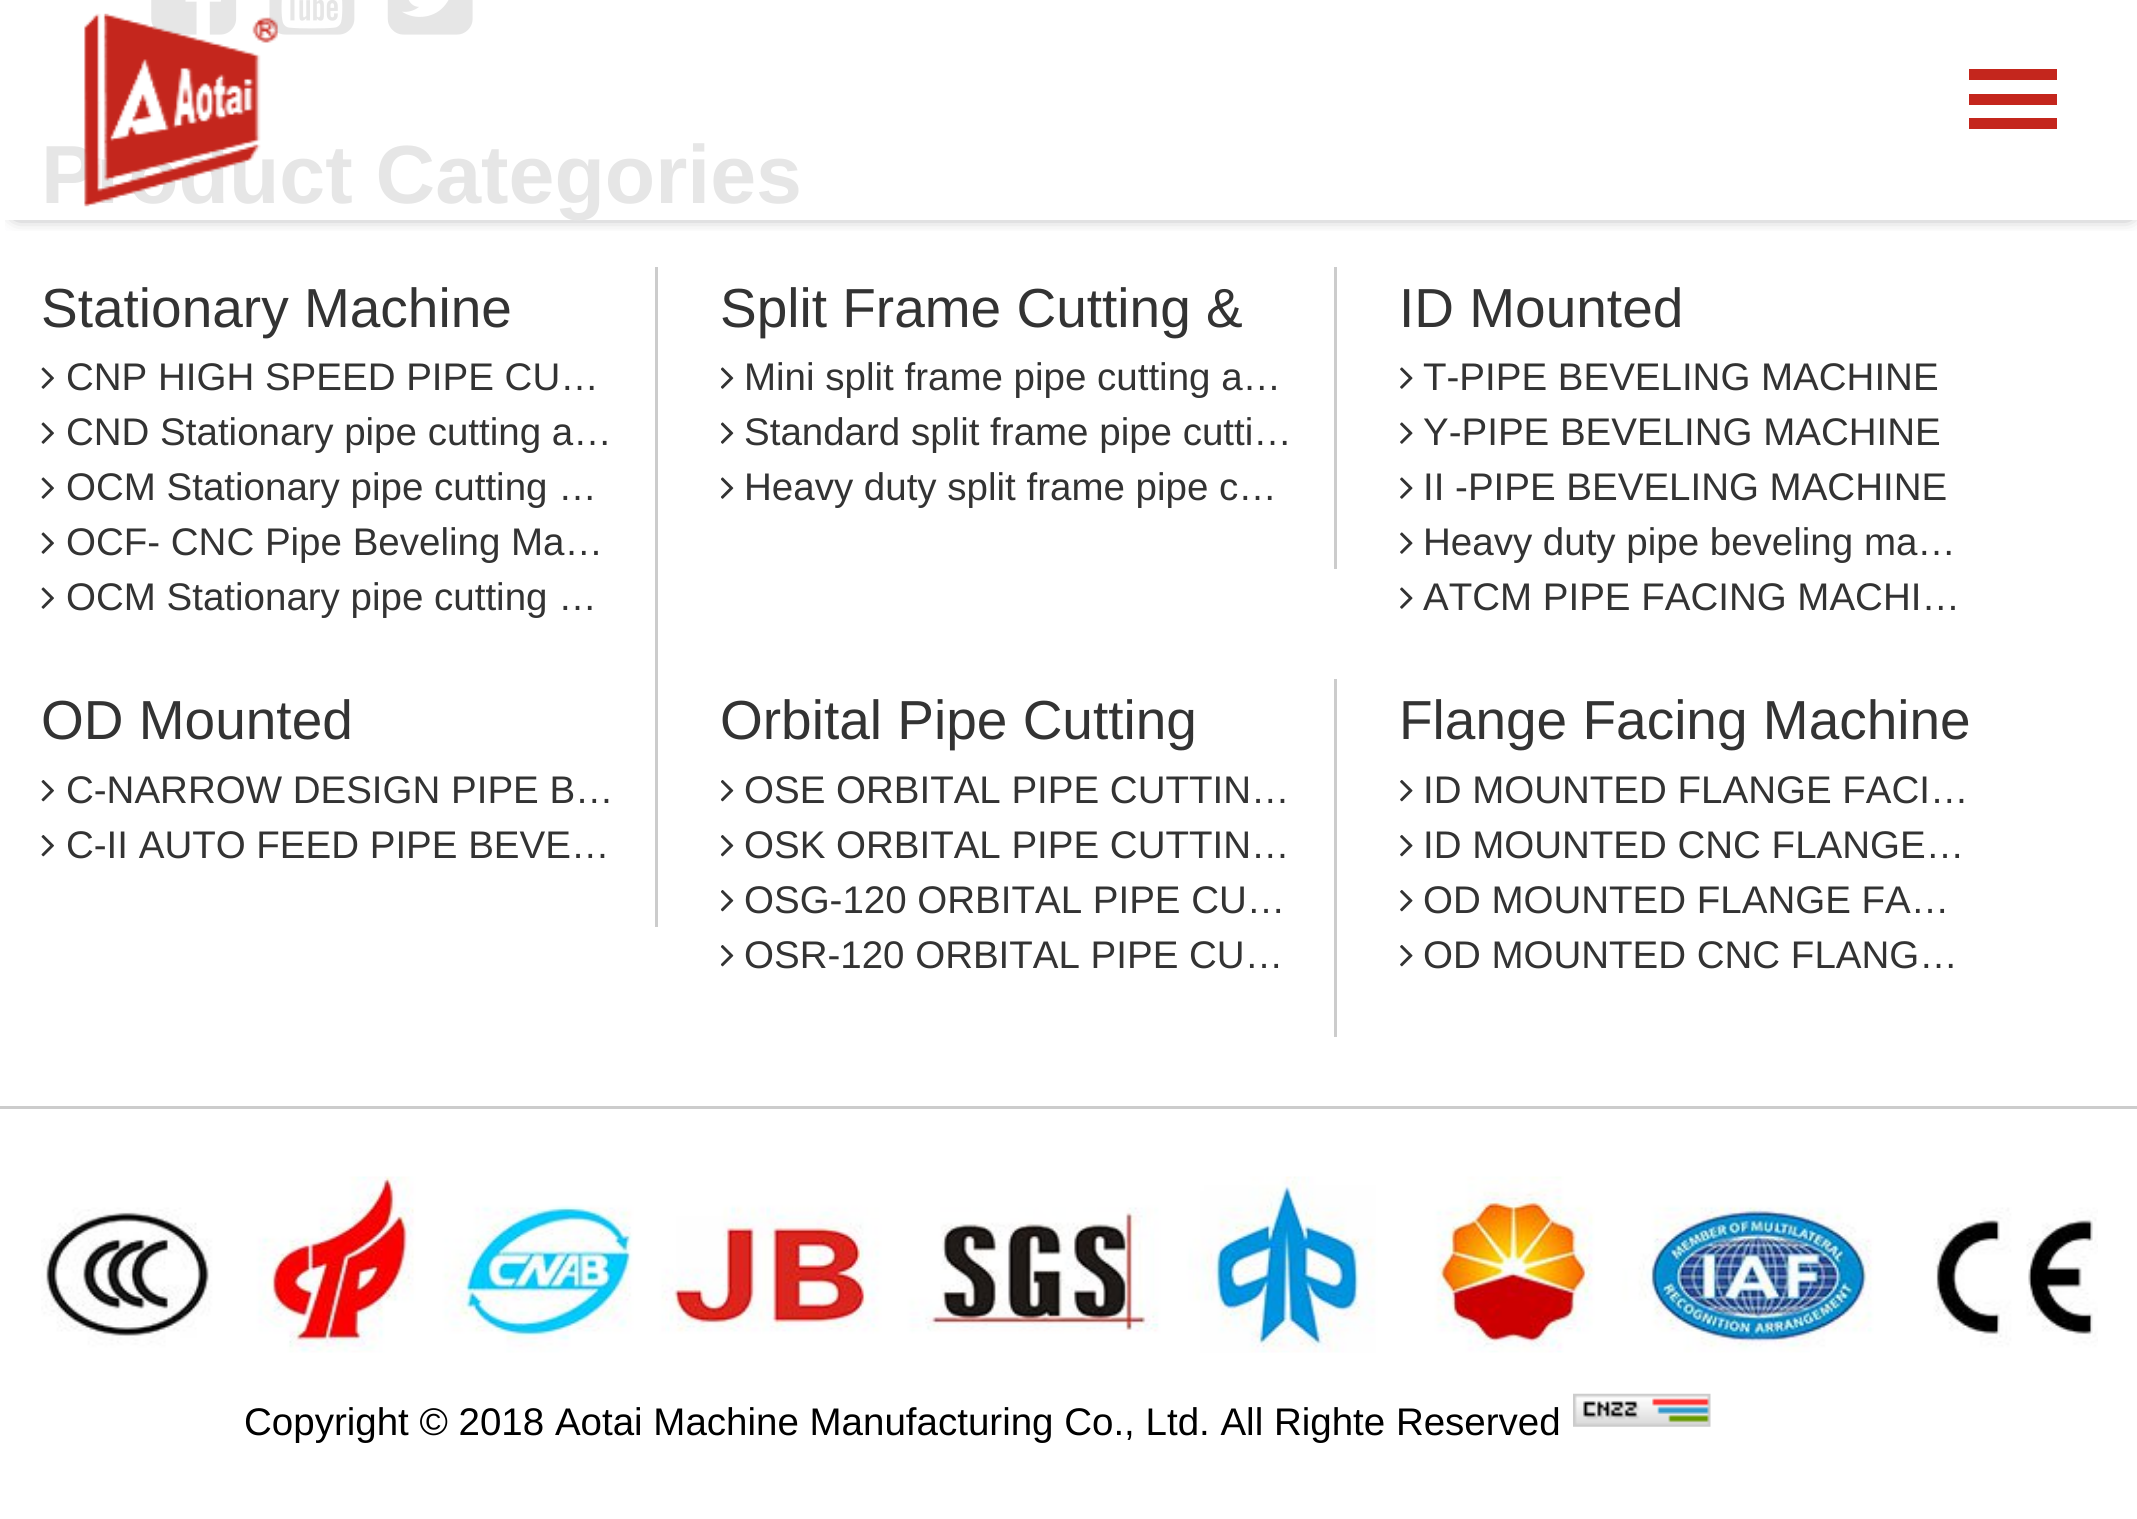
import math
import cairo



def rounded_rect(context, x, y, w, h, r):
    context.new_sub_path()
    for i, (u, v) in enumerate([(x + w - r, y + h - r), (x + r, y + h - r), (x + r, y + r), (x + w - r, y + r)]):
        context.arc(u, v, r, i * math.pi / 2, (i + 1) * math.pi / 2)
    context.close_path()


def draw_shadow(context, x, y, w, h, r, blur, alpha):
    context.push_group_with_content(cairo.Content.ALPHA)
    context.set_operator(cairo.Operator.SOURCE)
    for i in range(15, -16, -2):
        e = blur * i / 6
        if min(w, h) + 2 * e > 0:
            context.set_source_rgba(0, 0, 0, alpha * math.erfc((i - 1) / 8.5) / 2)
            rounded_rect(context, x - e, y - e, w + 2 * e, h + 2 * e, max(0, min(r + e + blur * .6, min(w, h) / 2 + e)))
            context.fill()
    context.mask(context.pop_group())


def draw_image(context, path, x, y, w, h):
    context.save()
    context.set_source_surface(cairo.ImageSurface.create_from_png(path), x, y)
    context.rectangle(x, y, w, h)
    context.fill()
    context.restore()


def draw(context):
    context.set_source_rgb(1, 1, 1)
    context.paint()
    draw_image(context, "images/2.png", 151, 0, 86, 35)
    draw_image(context, "images/3.png", 269, 0, 86, 35)
    draw_image(context, "images/4.png", 387, 0, 86, 35)
    context.save()
    context.rectangle(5, 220, 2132, 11)
    context.clip()
    context.set_source_rgb(63 / 255, 63 / 255, 70 / 255)
    draw_shadow(context, 17, 19, 2112, 193, 0, 9.5, 1)
    context.restore()
    context.set_source_rgb(196 / 255, 38 / 255, 29 / 255)
    context.rectangle(1969, 69, 88, 11)
    context.fill()
    context.rectangle(1969, 94, 88, 11)
    context.fill()
    context.rectangle(1969, 118, 88, 11)
    context.fill()
    context.set_source_rgb(204 / 255, 204 / 255, 204 / 255)
    context.rectangle(655, 267, 3, 660)
    context.fill()
    draw_image(context, "images/5.png", 41, 367, 13, 22)
    draw_image(context, "images/5.png", 41, 422, 13, 22)
    draw_image(context, "images/5.png", 41, 477, 13, 22)
    draw_image(context, "images/5.png", 41, 532, 13, 22)
    draw_image(context, "images/5.png", 41, 587, 13, 22)
    context.rectangle(1334, 267, 3, 302)
    context.fill()
    draw_image(context, "images/6.png", 721, 367, 13, 22)
    draw_image(context, "images/6.png", 721, 422, 13, 22)
    draw_image(context, "images/6.png", 721, 477, 13, 22)
    draw_image(context, "images/7.png", 1400, 367, 13, 22)
    draw_image(context, "images/7.png", 1400, 422, 13, 22)
    draw_image(context, "images/7.png", 1400, 477, 13, 22)
    draw_image(context, "images/7.png", 1400, 532, 13, 22)
    draw_image(context, "images/7.png", 1400, 587, 13, 22)
    draw_image(context, "images/8.png", 41, 780, 13, 22)
    draw_image(context, "images/8.png", 41, 835, 13, 22)
    context.rectangle(1334, 679, 3, 358)
    context.fill()
    draw_image(context, "images/9.png", 721, 780, 13, 22)
    draw_image(context, "images/9.png", 721, 835, 13, 22)
    draw_image(context, "images/9.png", 721, 890, 13, 22)
    draw_image(context, "images/9.png", 721, 945, 13, 22)
    draw_image(context, "images/10.png", 1400, 780, 13, 22)
    draw_image(context, "images/10.png", 1400, 835, 13, 22)
    draw_image(context, "images/10.png", 1400, 890, 13, 22)
    draw_image(context, "images/10.png", 1400, 945, 13, 22)
    context.rectangle(0, 1106, 2137, 3)
    context.fill()
    draw_image(context, "images/11.png", 41, 1176, 2057, 177)
    draw_image(context, "images/12.png", 1573, 1393, 138, 34)
    context.select_font_face("Liberation Sans", cairo.FontSlant.NORMAL, cairo.FontWeight.BOLD)
    context.set_font_size(82.5)
    context.set_source_rgb(230 / 255, 230 / 255, 230 / 255)
    context.move_to(41, 203)
    context.show_text("Product Categories")
    draw_image(context, "images/1.png", 84, 13, 194, 194)
    context.select_font_face("Liberation Sans")
    context.set_font_size(55)
    context.set_source_rgb(51 / 255, 51 / 255, 51 / 255)
    context.move_to(41, 327)
    context.show_text("Stationary Machine")
    context.set_font_size(38.5)
    context.move_to(66, 390)
    context.show_text("CNP HIGH SPEED PIPE CU…")
    context.move_to(66, 445)
    context.show_text("CND Stationary pipe cutting a…")
    context.move_to(66, 500)
    context.show_text("OCM Stationary pipe cutting …")
    context.move_to(66, 555)
    context.show_text("OCF- CNC Pipe Beveling Ma…")
    context.move_to(66, 610)
    context.show_text("OCM Stationary pipe cutting …")
    context.set_font_size(55)
    context.move_to(720, 327)
    context.show_text("Split Frame Cutting &")
    context.set_font_size(38.5)
    context.move_to(744, 390)
    context.show_text("Mini split frame pipe cutting a…")
    context.move_to(744, 445)
    context.show_text("Standard split frame pipe cutti…")
    context.move_to(744, 500)
    context.show_text("Heavy duty split frame pipe c…")
    context.set_font_size(55)
    context.move_to(1399, 327)
    context.show_text("ID Mounted")
    context.set_font_size(38.5)
    context.move_to(1423, 390)
    context.show_text("T-PIPE BEVELING MACHINE")
    context.move_to(1423, 445)
    context.show_text("Y-PIPE BEVELING MACHINE")
    context.move_to(1423, 500)
    context.show_text("II -PIPE BEVELING MACHINE")
    context.move_to(1423, 555)
    context.show_text("Heavy duty pipe beveling ma…")
    context.move_to(1423, 610)
    context.show_text("ATCM PIPE FACING MACHI…")
    context.set_font_size(55)
    context.move_to(41, 739)
    context.show_text("OD Mounted")
    context.set_font_size(38.5)
    context.move_to(66, 803)
    context.show_text("C-NARROW DESIGN PIPE B…")
    context.move_to(66, 858)
    context.show_text("C-II AUTO FEED PIPE BEVE…")
    context.set_font_size(55)
    context.move_to(720, 739)
    context.show_text("Orbital Pipe Cutting")
    context.set_font_size(38.5)
    context.move_to(744, 803)
    context.show_text("OSE ORBITAL PIPE CUTTIN…")
    context.move_to(744, 858)
    context.show_text("OSK ORBITAL PIPE CUTTIN…")
    context.move_to(744, 913)
    context.show_text("OSG-120 ORBITAL PIPE CU…")
    context.move_to(744, 968)
    context.show_text("OSR-120 ORBITAL PIPE CU…")
    context.set_font_size(55)
    context.move_to(1399, 739)
    context.show_text("Flange Facing Machine")
    context.set_font_size(38.5)
    context.move_to(1423, 803)
    context.show_text("ID MOUNTED FLANGE FACI…")
    context.move_to(1423, 858)
    context.show_text("ID MOUNTED CNC FLANGE…")
    context.move_to(1423, 913)
    context.show_text("OD MOUNTED FLANGE FA…")
    context.move_to(1423, 968)
    context.show_text("OD MOUNTED CNC FLANG…")
    context.set_source_rgb(0, 0, 0)
    context.move_to(244, 1435)
    context.show_text("Copyright © 2018 Aotai Machine Manufacturing Co., Ltd. All Righte Reserved")


surface = cairo.ImageSurface(cairo.Format.RGB24, 2137, 1519)
context = cairo.Context(surface)
options = cairo.FontOptions()
options.set_hint_metrics(cairo.HintMetrics.OFF)
options.set_hint_style(cairo.HintStyle.NONE)
context.set_font_options(options)
context.set_miter_limit(4)
draw(context)
surface.write_to_png("out.png")
